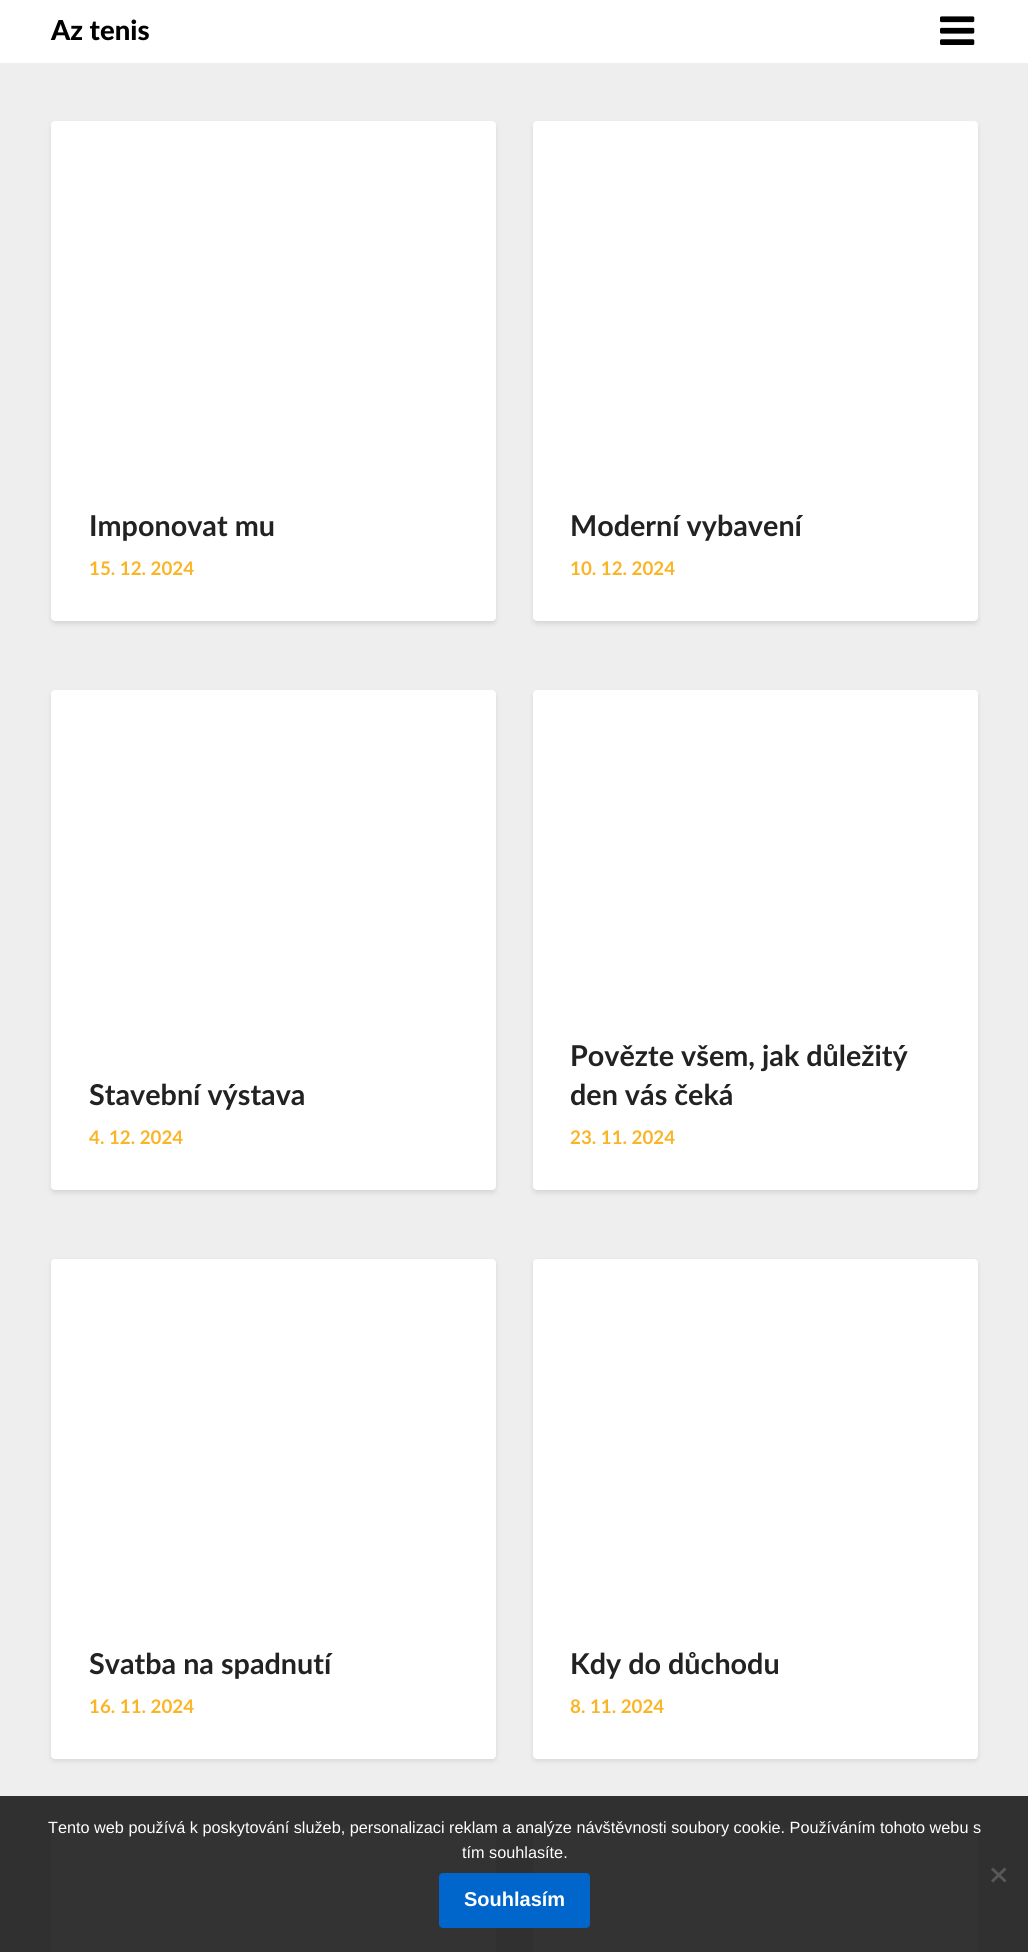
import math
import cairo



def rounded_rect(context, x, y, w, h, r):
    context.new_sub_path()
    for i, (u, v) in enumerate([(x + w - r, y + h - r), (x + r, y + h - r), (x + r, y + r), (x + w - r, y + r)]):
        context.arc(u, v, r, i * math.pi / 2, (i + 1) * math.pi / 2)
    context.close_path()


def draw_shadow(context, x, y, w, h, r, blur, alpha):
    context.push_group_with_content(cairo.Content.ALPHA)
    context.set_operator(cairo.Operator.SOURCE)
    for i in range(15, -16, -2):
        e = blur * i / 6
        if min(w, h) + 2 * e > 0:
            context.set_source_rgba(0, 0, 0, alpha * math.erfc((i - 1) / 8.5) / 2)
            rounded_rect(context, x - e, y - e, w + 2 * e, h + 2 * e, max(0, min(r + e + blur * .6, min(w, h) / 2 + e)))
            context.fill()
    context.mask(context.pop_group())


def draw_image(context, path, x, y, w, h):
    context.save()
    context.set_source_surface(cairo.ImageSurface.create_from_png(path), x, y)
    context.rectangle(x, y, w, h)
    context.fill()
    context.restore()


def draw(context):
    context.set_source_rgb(238 / 255, 238 / 255, 238 / 255)
    context.paint()
    context.set_source_rgb(48 / 255, 48 / 255, 48 / 255)
    context.rectangle(0, 1796, 1028, 156)
    context.fill()
    context.set_source_rgb(1, 1, 1)
    context.rectangle(0, 0, 1028, 63)
    context.fill()
    draw_image(context, "images/1.png", 940, 16, 35, 29)
    context.set_source_rgb(0, 0, 0)
    draw_shadow(context, 51, 124, 445, 500, 4, 2.5, 0.1)
    context.set_source_rgb(1, 1, 1)
    rounded_rect(context, 51, 121, 445, 500, 4)
    context.fill()
    context.set_source_rgb(0, 0, 0)
    draw_shadow(context, 533, 124, 445, 500, 4, 2.5, 0.1)
    context.set_source_rgb(1, 1, 1)
    rounded_rect(context, 533, 121, 445, 500, 4)
    context.fill()
    context.set_source_rgb(0, 0, 0)
    draw_shadow(context, 51, 693, 445, 500, 4, 2.5, 0.1)
    context.set_source_rgb(1, 1, 1)
    rounded_rect(context, 51, 690, 445, 500, 4)
    context.fill()
    context.set_source_rgb(0, 0, 0)
    draw_shadow(context, 533, 693, 445, 500, 4, 2.5, 0.1)
    context.set_source_rgb(1, 1, 1)
    rounded_rect(context, 533, 690, 445, 500, 4)
    context.fill()
    context.set_source_rgb(0, 0, 0)
    draw_shadow(context, 51, 1261, 445, 500, 4, 2.5, 0.1)
    context.set_source_rgb(1, 1, 1)
    rounded_rect(context, 51, 1259, 445, 500, 4)
    context.fill()
    context.set_source_rgb(0, 0, 0)
    draw_shadow(context, 533, 1261, 445, 500, 4, 2.5, 0.1)
    context.set_source_rgb(1, 1, 1)
    rounded_rect(context, 533, 1259, 445, 500, 4)
    context.fill()
    context.set_source_rgb(51 / 255, 51 / 255, 51 / 255)
    rounded_rect(context, 51, 1828, 445, 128, 4)
    context.fill()
    rounded_rect(context, 533, 1828, 445, 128, 4)
    context.fill()
    context.set_source_rgb(88 / 255, 88 / 255, 88 / 255)
    context.new_path()
    context.move_to(1004.5, 1867.5)
    context.line_to(1006.5, 1869.5)
    context.line_to(993, 1882.5)
    context.line_to(991, 1880.5)
    context.close_path()
    context.fill()
    context.new_path()
    context.move_to(991, 1869.5)
    context.line_to(993, 1867.5)
    context.line_to(1006.5, 1880.5)
    context.line_to(1004.5, 1882.5)
    context.close_path()
    context.fill()
    context.set_source_rgb(0, 102 / 255, 204 / 255)
    rounded_rect(context, 439, 1873, 151, 55, 4)
    context.fill()
    context.select_font_face("Lato Black")
    context.set_font_size(27.5)
    context.set_source_rgb(0, 0, 0)
    context.move_to(51, 40)
    context.show_text("Az tenis")
    context.select_font_face("Lato", cairo.FontSlant.NORMAL, cairo.FontWeight.BOLD)
    context.set_font_size(28.75)
    context.set_source_rgb(34 / 255, 34 / 255, 34 / 255)
    context.move_to(89, 536)
    context.show_text("Imponovat mu")
    context.set_font_size(18.75)
    context.set_source_rgb(250 / 255, 181 / 255, 38 / 255)
    context.move_to(89, 575)
    context.show_text("15. 12. 2024")
    context.set_font_size(28.75)
    context.set_source_rgb(34 / 255, 34 / 255, 34 / 255)
    context.move_to(570, 536)
    context.show_text("Moderní vybavení")
    context.set_font_size(18.75)
    context.set_source_rgb(250 / 255, 181 / 255, 38 / 255)
    context.move_to(570, 575)
    context.show_text("10. 12. 2024")
    context.set_font_size(28.75)
    context.set_source_rgb(34 / 255, 34 / 255, 34 / 255)
    context.move_to(89, 1105)
    context.show_text("Stavební výstava")
    context.set_font_size(18.75)
    context.set_source_rgb(250 / 255, 181 / 255, 38 / 255)
    context.move_to(89, 1144)
    context.show_text("4. 12. 2024")
    context.set_font_size(28.75)
    context.set_source_rgb(34 / 255, 34 / 255, 34 / 255)
    context.move_to(570, 1066)
    context.show_text("Povězte všem, jak důležitý")
    context.move_to(570, 1105)
    context.show_text("den vás čeká")
    context.set_font_size(18.75)
    context.set_source_rgb(250 / 255, 181 / 255, 38 / 255)
    context.move_to(570, 1144)
    context.show_text("23. 11. 2024")
    context.set_font_size(28.75)
    context.set_source_rgb(34 / 255, 34 / 255, 34 / 255)
    context.move_to(89, 1674)
    context.show_text("Svatba na spadnutí")
    context.set_font_size(18.75)
    context.set_source_rgb(250 / 255, 181 / 255, 38 / 255)
    context.move_to(89, 1713)
    context.show_text("16. 11. 2024")
    context.set_font_size(28.75)
    context.set_source_rgb(34 / 255, 34 / 255, 34 / 255)
    context.move_to(570, 1674)
    context.show_text("Kdy do důchodu")
    context.set_font_size(18.75)
    context.set_source_rgb(250 / 255, 181 / 255, 38 / 255)
    context.move_to(570, 1713)
    context.show_text("8. 11. 2024")
    context.select_font_face("Liberation Sans")
    context.set_font_size(16.25)
    context.set_source_rgb(1, 1, 1)
    context.move_to(48, 1833)
    context.show_text("Tento web používá k poskytování služeb, personalizaci reklam a analýze návštěvnosti soubory cookie. Používáním tohoto webu s")
    context.move_to(462, 1858)
    context.show_text("tím souhlasíte.")
    context.select_font_face("Liberation Sans", cairo.FontSlant.NORMAL, cairo.FontWeight.BOLD)
    context.set_font_size(20)
    context.move_to(464, 1906)
    context.show_text("Souhlasím")


surface = cairo.ImageSurface(cairo.Format.RGB24, 1028, 1952)
context = cairo.Context(surface)
options = cairo.FontOptions()
options.set_hint_metrics(cairo.HintMetrics.OFF)
options.set_hint_style(cairo.HintStyle.NONE)
context.set_font_options(options)
context.set_miter_limit(4)
draw(context)
surface.write_to_png("out.png")
